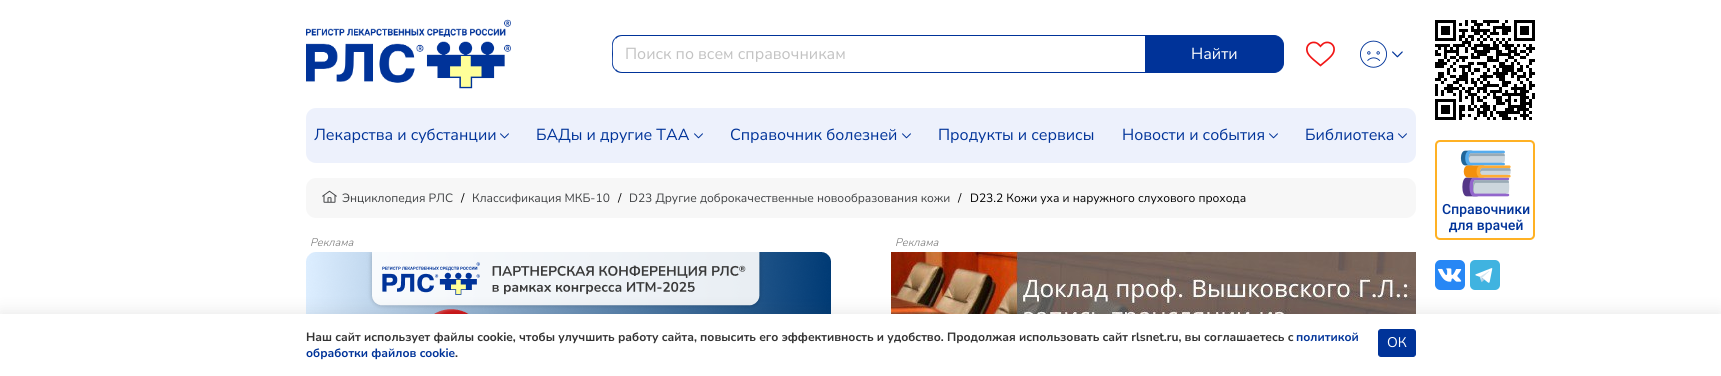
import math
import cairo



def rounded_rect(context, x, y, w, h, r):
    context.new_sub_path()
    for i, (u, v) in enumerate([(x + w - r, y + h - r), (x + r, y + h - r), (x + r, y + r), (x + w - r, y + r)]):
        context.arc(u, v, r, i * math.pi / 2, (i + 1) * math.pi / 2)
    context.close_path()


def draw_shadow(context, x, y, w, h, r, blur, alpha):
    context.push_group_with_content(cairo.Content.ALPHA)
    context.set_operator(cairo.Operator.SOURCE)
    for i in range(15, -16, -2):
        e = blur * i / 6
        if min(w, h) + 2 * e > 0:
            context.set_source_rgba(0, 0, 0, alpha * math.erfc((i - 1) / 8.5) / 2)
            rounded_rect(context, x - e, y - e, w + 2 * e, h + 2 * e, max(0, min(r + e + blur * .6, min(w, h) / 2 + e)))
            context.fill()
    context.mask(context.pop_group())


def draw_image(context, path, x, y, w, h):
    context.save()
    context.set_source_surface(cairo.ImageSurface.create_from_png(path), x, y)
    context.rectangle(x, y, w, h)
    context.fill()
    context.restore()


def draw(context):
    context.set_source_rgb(1, 1, 1)
    context.paint()
    draw_image(context, "images/1.png", 306, 19, 205, 70)
    context.set_source_rgb(0, 51 / 255, 153 / 255)
    context.new_path()
    context.move_to(622, 35)
    context.curve_to(619, 35, 616, 36, 615, 38)
    context.line_to(616, 39)
    context.curve_to(617, 37, 620, 36, 622, 36)
    context.line_to(1145, 36)
    context.line_to(1146, 35)
    context.close_path()
    context.fill()
    context.new_path()
    context.move_to(1146, 73)
    context.line_to(1145, 72)
    context.line_to(622, 72)
    context.curve_to(620, 72, 617, 71, 616, 69)
    context.line_to(615, 70)
    context.curve_to(616, 72, 619, 73, 622, 73)
    context.close_path()
    context.fill()
    context.new_path()
    context.move_to(612, 45)
    context.line_to(612, 63)
    context.curve_to(612, 66, 613, 68.5, 615, 70)
    context.line_to(615.5, 69.5)
    context.curve_to(611.5, 65.5, 613, 59, 613, 54)
    context.curve_to(613, 49, 611.5, 42.5, 615.5, 38.5)
    context.line_to(615, 38)
    context.curve_to(613, 39.5, 612, 42, 612, 45)
    context.close_path()
    context.fill()
    context.new_path()
    context.move_to(1145.5, 35.5)
    context.line_to(1274, 35.5)
    context.curve_to(1279, 35.5, 1283.5, 40, 1283.5, 45)
    context.line_to(1283.5, 63)
    context.curve_to(1283.5, 68, 1279, 72.5, 1274, 72.5)
    context.line_to(1145.5, 72.5)
    context.close_path()
    context.fill_preserve()
    context.set_line_width(1)
    context.stroke()
    draw_image(context, "images/2.png", 1306, 41, 29, 26)
    draw_image(context, "images/3.png", 1360, 40, 27, 28)
    draw_image(context, "images/4.png", 1392, 51, 11, 7)
    context.set_source_rgb(237 / 255, 241 / 255, 252 / 255)
    rounded_rect(context, 306, 108, 1110, 55, 10)
    context.fill()
    draw_image(context, "images/5.png", 500, 133, 9, 6)
    draw_image(context, "images/5.png", 694, 133, 9, 6)
    draw_image(context, "images/5.png", 902, 133, 9, 6)
    draw_image(context, "images/5.png", 1269, 133, 9, 6)
    draw_image(context, "images/5.png", 1398, 133, 9, 6)
    draw_image(context, "images/6.png", 1435, 20, 100, 100)
    draw_image(context, "images/7.png", 1435, 140, 100, 100)
    draw_image(context, "images/11.png", 306, 252, 525, 62)
    draw_image(context, "images/12.png", 891, 252, 525, 62)
    context.set_source_rgb(50 / 255, 50 / 255, 50 / 255)
    draw_shadow(context, 0, 311, 1721, 62, 0, 7.5, 0.1)
    draw_image(context, "images/8.png", 1435, 260, 30, 30)
    draw_image(context, "images/9.png", 1470, 260, 30, 30)
    context.set_source_rgb(247 / 255, 247 / 255, 247 / 255)
    rounded_rect(context, 306, 178, 1110, 40, 10)
    context.fill()
    draw_image(context, "images/10.png", 322, 190, 15, 13)
    context.set_source_rgb(1, 1, 1)
    context.rectangle(0, 314, 1721, 62)
    context.fill()
    context.set_source_rgb(0, 51 / 255, 153 / 255)
    rounded_rect(context, 1378.5, 329.5, 37, 27, 2.5)
    context.fill_preserve()
    context.stroke()
    context.select_font_face("Nunito Sans")
    context.set_font_size(16)
    context.set_source_rgb(194 / 255, 194 / 255, 194 / 255)
    context.move_to(625, 59)
    context.show_text("Поиск по всем справочникам")
    context.set_source_rgb(1, 1, 1)
    context.move_to(1191, 59)
    context.show_text("Найти")
    context.set_source_rgb(0, 51 / 255, 153 / 255)
    context.move_to(314, 140)
    context.show_text("Лекарства и субстанции")
    context.move_to(536, 140)
    context.show_text("БАДы и другие ТАА")
    context.move_to(730, 140)
    context.show_text("Справочник болезней")
    context.move_to(938, 140)
    context.show_text("Продукты и сервисы")
    context.move_to(1122, 140)
    context.show_text("Новости и события")
    context.move_to(1305, 140)
    context.show_text("Библиотека")
    context.set_font_size(12)
    context.set_source_rgb(64 / 255, 66 / 255, 68 / 255)
    context.move_to(342, 202)
    context.show_text("Энциклопедия РЛС")
    context.set_source_rgb(1 / 255, 1 / 255, 1 / 255)
    context.move_to(461, 202)
    context.show_text("/")
    context.set_source_rgb(64 / 255, 66 / 255, 68 / 255)
    context.move_to(472, 202)
    context.show_text("Классификация МКБ-10")
    context.set_source_rgb(1 / 255, 1 / 255, 1 / 255)
    context.move_to(618, 202)
    context.show_text("/")
    context.set_source_rgb(64 / 255, 66 / 255, 68 / 255)
    context.move_to(629, 202)
    context.show_text("D23 Другие доброкачественные новообразования кожи")
    context.set_source_rgb(1 / 255, 1 / 255, 1 / 255)
    context.move_to(958, 202)
    context.show_text("/")
    context.move_to(970, 202)
    context.show_text("D23.2 Кожи уха и наружного слухового прохода")
    context.select_font_face("Nunito Sans Light", cairo.FontSlant.ITALIC)
    context.set_font_size(11)
    context.set_source_rgb(119 / 255, 119 / 255, 119 / 255)
    context.move_to(310, 246)
    context.show_text("Реклама")
    context.move_to(895, 246)
    context.show_text("Реклама")
    context.select_font_face("Nunito Sans", cairo.FontSlant.NORMAL, cairo.FontWeight.BOLD)
    context.set_font_size(12)
    context.set_source_rgb(51 / 255, 51 / 255, 51 / 255)
    context.move_to(306, 341)
    context.show_text("Наш сайт использует файлы cookie, чтобы улучшить работу сайта, повысить его эффективность и удобство. Продолжая использовать сайт rlsnet.ru, вы соглашаетесь с")
    context.set_source_rgb(0, 51 / 255, 153 / 255)
    context.move_to(1296, 341)
    context.show_text("политикой")
    context.move_to(306, 357)
    context.show_text("обработки файлов cookie")
    context.set_source_rgb(51 / 255, 51 / 255, 51 / 255)
    context.move_to(455, 357)
    context.show_text(".")
    context.select_font_face("Nunito Sans")
    context.set_font_size(14)
    context.set_source_rgb(1, 1, 1)
    context.move_to(1387, 347)
    context.show_text("ОК")


surface = cairo.ImageSurface(cairo.Format.RGB24, 1721, 376)
context = cairo.Context(surface)
options = cairo.FontOptions()
options.set_hint_metrics(cairo.HintMetrics.OFF)
options.set_hint_style(cairo.HintStyle.NONE)
context.set_font_options(options)
context.set_miter_limit(4)
draw(context)
surface.write_to_png("out.png")
